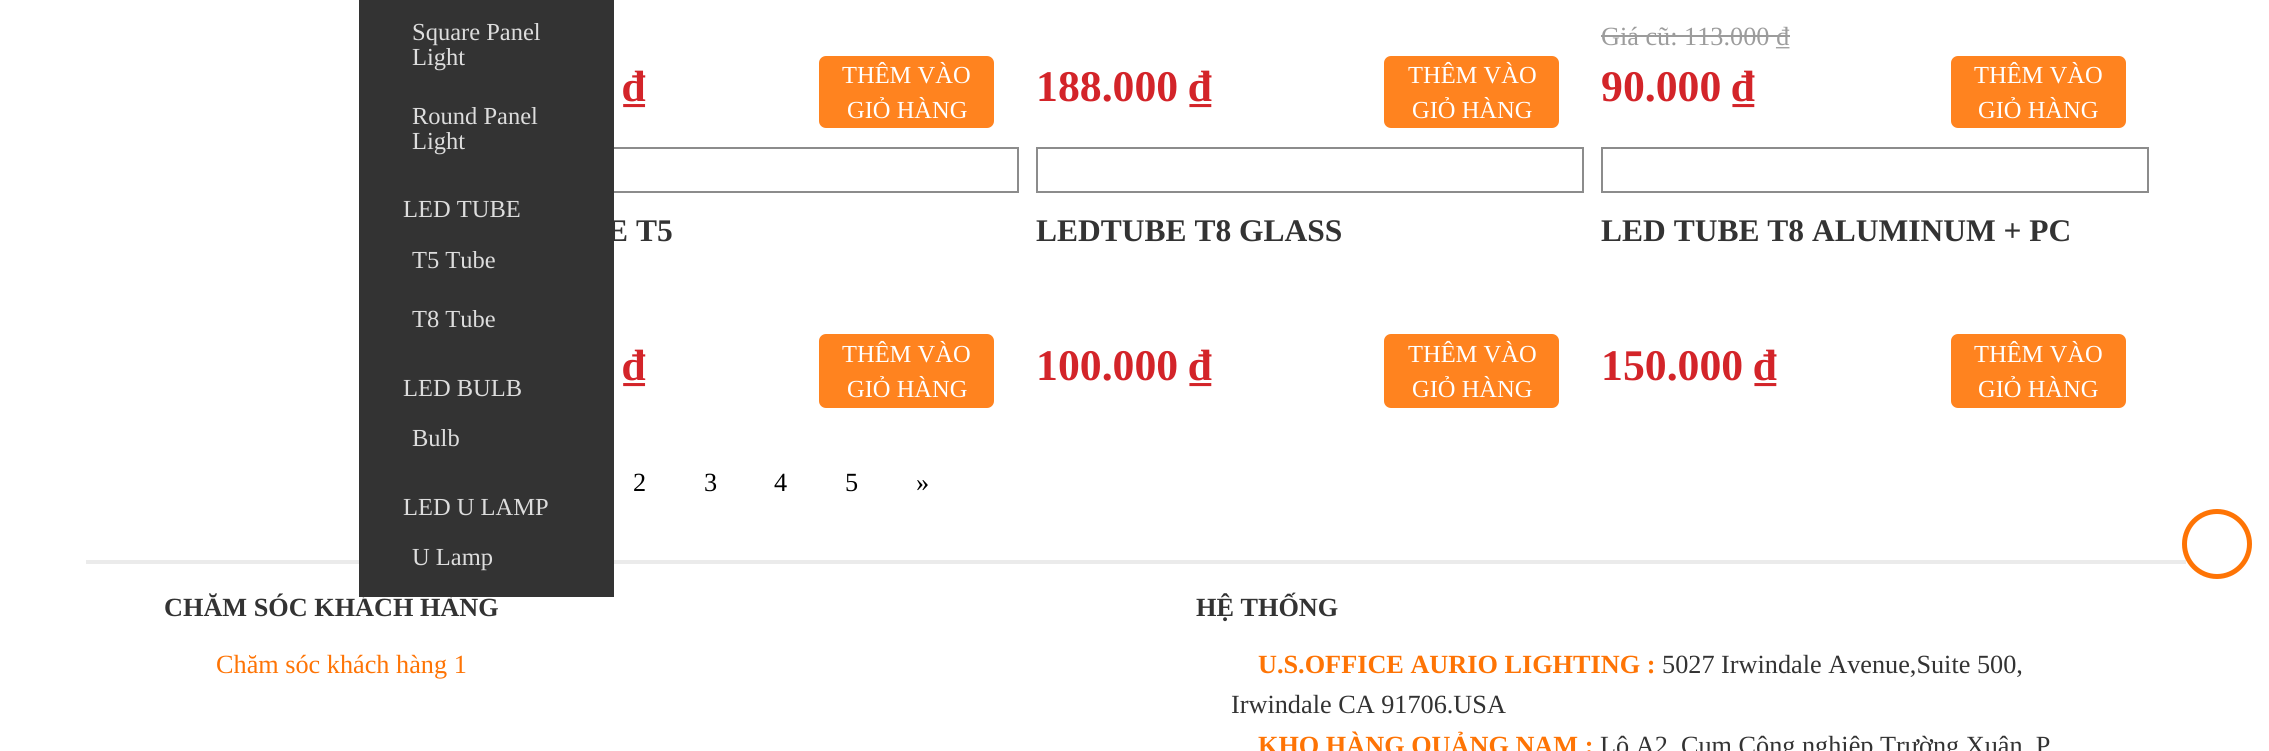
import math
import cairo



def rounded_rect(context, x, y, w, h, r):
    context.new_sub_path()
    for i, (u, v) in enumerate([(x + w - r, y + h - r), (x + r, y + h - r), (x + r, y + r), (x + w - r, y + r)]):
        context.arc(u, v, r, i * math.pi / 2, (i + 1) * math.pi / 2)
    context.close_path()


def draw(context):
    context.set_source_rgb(1, 1, 1)
    context.paint()
    context.rectangle(472, 148, 546, 44)
    context.set_source_rgb(140 / 255, 140 / 255, 140 / 255)
    context.stroke()
    context.set_source_rgb(235 / 255, 235 / 255, 235 / 255)
    context.rectangle(86, 560, 2100, 4)
    context.fill()
    context.set_source_rgb(51 / 255, 51 / 255, 51 / 255)
    context.rectangle(359, 0, 255, 597)
    context.fill()
    context.set_source_rgb(1, 131 / 255, 31 / 255)
    rounded_rect(context, 819, 56, 175, 72, 7)
    context.fill()
    rounded_rect(context, 1384, 56, 175, 72, 7)
    context.fill()
    context.set_source_rgb(156 / 255, 156 / 255, 156 / 255)
    context.rectangle(1601, 35, 189, 2)
    context.fill()
    context.set_source_rgb(1, 131 / 255, 31 / 255)
    rounded_rect(context, 1951, 56, 175, 72, 7)
    context.fill()
    rounded_rect(context, 819, 334, 175, 74, 7)
    context.fill()
    context.rectangle(1037, 148, 546, 44)
    context.set_source_rgb(140 / 255, 140 / 255, 140 / 255)
    context.stroke()
    context.set_source_rgb(1, 131 / 255, 31 / 255)
    rounded_rect(context, 1384, 334, 175, 74, 7)
    context.fill()
    context.rectangle(1602, 148, 546, 44)
    context.set_source_rgb(140 / 255, 140 / 255, 140 / 255)
    context.stroke()
    context.set_source_rgb(1, 131 / 255, 31 / 255)
    rounded_rect(context, 1951, 334, 175, 74, 7)
    context.fill()
    context.arc(2217, 544, 32.5, 0, 2 * math.pi)
    context.set_source_rgb(254 / 255, 116 / 255, 5 / 255)
    context.set_line_width(5)
    context.stroke()
    context.select_font_face("Liberation Serif")
    context.set_font_size(24.5)
    context.set_source_rgb(221 / 255, 221 / 255, 221 / 255)
    context.move_to(412, 40)
    context.show_text("Square Panel")
    context.move_to(412, 65)
    context.show_text("Light")
    context.move_to(412, 124)
    context.show_text("Round Panel")
    context.move_to(412, 149)
    context.show_text("Light")
    context.move_to(403, 217)
    context.show_text("LED TUBE")
    context.move_to(412, 268)
    context.show_text("T5 Tube")
    context.move_to(412, 327)
    context.show_text("T8 Tube")
    context.move_to(403, 396)
    context.show_text("LED BULB")
    context.move_to(412, 446)
    context.show_text("Bulb")
    context.move_to(403, 515)
    context.show_text("LED U LAMP")
    context.move_to(412, 565)
    context.show_text("U Lamp")
    context.select_font_face("Liberation Serif", cairo.FontSlant.NORMAL, cairo.FontWeight.BOLD)
    context.set_font_size(43.75)
    context.set_source_rgb(211 / 255, 36 / 255, 41 / 255)
    context.move_to(623, 101)
    context.show_text("₫")
    context.select_font_face("Liberation Serif")
    context.set_font_size(24.5)
    context.set_source_rgb(1, 1, 1)
    context.move_to(842, 83)
    context.show_text("THÊM VÀO")
    context.move_to(847, 118)
    context.show_text("GIỎ HÀNG")
    context.select_font_face("Liberation Serif", cairo.FontSlant.NORMAL, cairo.FontWeight.BOLD)
    context.set_font_size(43.75)
    context.set_source_rgb(211 / 255, 36 / 255, 41 / 255)
    context.move_to(1036, 101)
    context.show_text("188.000 ₫")
    context.select_font_face("Liberation Serif")
    context.set_font_size(24.5)
    context.set_source_rgb(1, 1, 1)
    context.move_to(1408, 83)
    context.show_text("THÊM VÀO")
    context.move_to(1412, 118)
    context.show_text("GIỎ HÀNG")
    context.set_font_size(26.25)
    context.set_source_rgb(156 / 255, 156 / 255, 156 / 255)
    context.move_to(1601, 45)
    context.show_text("Giá cũ: 113.000 ₫")
    context.select_font_face("Liberation Serif", cairo.FontSlant.NORMAL, cairo.FontWeight.BOLD)
    context.set_font_size(43.75)
    context.set_source_rgb(211 / 255, 36 / 255, 41 / 255)
    context.move_to(1601, 101)
    context.show_text("90.000 ₫")
    context.select_font_face("Liberation Serif")
    context.set_font_size(24.5)
    context.set_source_rgb(1, 1, 1)
    context.move_to(1974, 83)
    context.show_text("THÊM VÀO")
    context.move_to(1978, 118)
    context.show_text("GIỎ HÀNG")
    context.select_font_face("Liberation Serif", cairo.FontSlant.NORMAL, cairo.FontWeight.BOLD)
    context.set_font_size(31.5)
    context.set_source_rgb(51 / 255, 51 / 255, 51 / 255)
    context.move_to(607, 241)
    context.show_text("E T5")
    context.set_font_size(43.75)
    context.set_source_rgb(211 / 255, 36 / 255, 41 / 255)
    context.move_to(623, 380)
    context.show_text("₫")
    context.select_font_face("Liberation Serif")
    context.set_font_size(24.5)
    context.set_source_rgb(1, 1, 1)
    context.move_to(842, 362)
    context.show_text("THÊM VÀO")
    context.move_to(847, 397)
    context.show_text("GIỎ HÀNG")
    context.select_font_face("Liberation Serif", cairo.FontSlant.NORMAL, cairo.FontWeight.BOLD)
    context.set_font_size(31.5)
    context.set_source_rgb(51 / 255, 51 / 255, 51 / 255)
    context.move_to(1036, 241)
    context.show_text("LEDTUBE T8 GLASS")
    context.set_font_size(43.75)
    context.set_source_rgb(211 / 255, 36 / 255, 41 / 255)
    context.move_to(1036, 380)
    context.show_text("100.000 ₫")
    context.select_font_face("Liberation Serif")
    context.set_font_size(24.5)
    context.set_source_rgb(1, 1, 1)
    context.move_to(1408, 362)
    context.show_text("THÊM VÀO")
    context.move_to(1412, 397)
    context.show_text("GIỎ HÀNG")
    context.select_font_face("Liberation Serif", cairo.FontSlant.NORMAL, cairo.FontWeight.BOLD)
    context.set_font_size(31.5)
    context.set_source_rgb(51 / 255, 51 / 255, 51 / 255)
    context.move_to(1601, 241)
    context.show_text("LED TUBE T8 ALUMINUM + PC")
    context.set_font_size(43.75)
    context.set_source_rgb(211 / 255, 36 / 255, 41 / 255)
    context.move_to(1601, 380)
    context.show_text("150.000 ₫")
    context.select_font_face("Liberation Serif")
    context.set_font_size(24.5)
    context.set_source_rgb(1, 1, 1)
    context.move_to(1974, 362)
    context.show_text("THÊM VÀO")
    context.move_to(1978, 397)
    context.show_text("GIỎ HÀNG")
    context.set_font_size(26.25)
    context.set_source_rgb(0, 0, 0)
    context.move_to(633, 491)
    context.show_text("2")
    context.move_to(704, 491)
    context.show_text("3")
    context.move_to(774, 491)
    context.show_text("4")
    context.move_to(845, 491)
    context.show_text("5")
    context.move_to(916, 491)
    context.show_text("»")
    context.select_font_face("Liberation Serif", cairo.FontSlant.NORMAL, cairo.FontWeight.BOLD)
    context.set_source_rgb(51 / 255, 51 / 255, 51 / 255)
    context.move_to(164, 616)
    context.show_text("CHĂM SÓC KHÁCH HÀNG")
    context.select_font_face("Liberation Serif")
    context.set_source_rgb(254 / 255, 116 / 255, 5 / 255)
    context.move_to(216, 673)
    context.show_text("Chăm sóc khách hàng 1")
    context.select_font_face("Liberation Serif", cairo.FontSlant.NORMAL, cairo.FontWeight.BOLD)
    context.set_source_rgb(51 / 255, 51 / 255, 51 / 255)
    context.move_to(1196, 616)
    context.show_text("HỆ THỐNG")
    context.set_source_rgb(254 / 255, 116 / 255, 5 / 255)
    context.move_to(1258, 673)
    context.show_text("U.S.OFFICE AURIO LIGHTING :")
    context.select_font_face("Liberation Serif")
    context.set_source_rgb(51 / 255, 51 / 255, 51 / 255)
    context.move_to(1662, 673)
    context.show_text("5027 Irwindale Avenue,Suite 500,")
    context.move_to(1231, 713)
    context.show_text("Irwindale CA 91706.USA")
    context.select_font_face("Liberation Serif", cairo.FontSlant.NORMAL, cairo.FontWeight.BOLD)
    context.set_source_rgb(254 / 255, 116 / 255, 5 / 255)
    context.move_to(1258, 754)
    context.show_text("KHO HÀNG QUẢNG NAM :")
    context.select_font_face("Liberation Serif")
    context.set_source_rgb(51 / 255, 51 / 255, 51 / 255)
    context.move_to(1600, 754)
    context.show_text("Lô A2, Cụm Công nghiệp Trường Xuân, P")


surface = cairo.ImageSurface(cairo.Format.RGB24, 2269, 751)
context = cairo.Context(surface)
options = cairo.FontOptions()
options.set_hint_metrics(cairo.HintMetrics.OFF)
options.set_hint_style(cairo.HintStyle.NONE)
context.set_font_options(options)
context.set_miter_limit(4)
draw(context)
surface.write_to_png("out.png")
